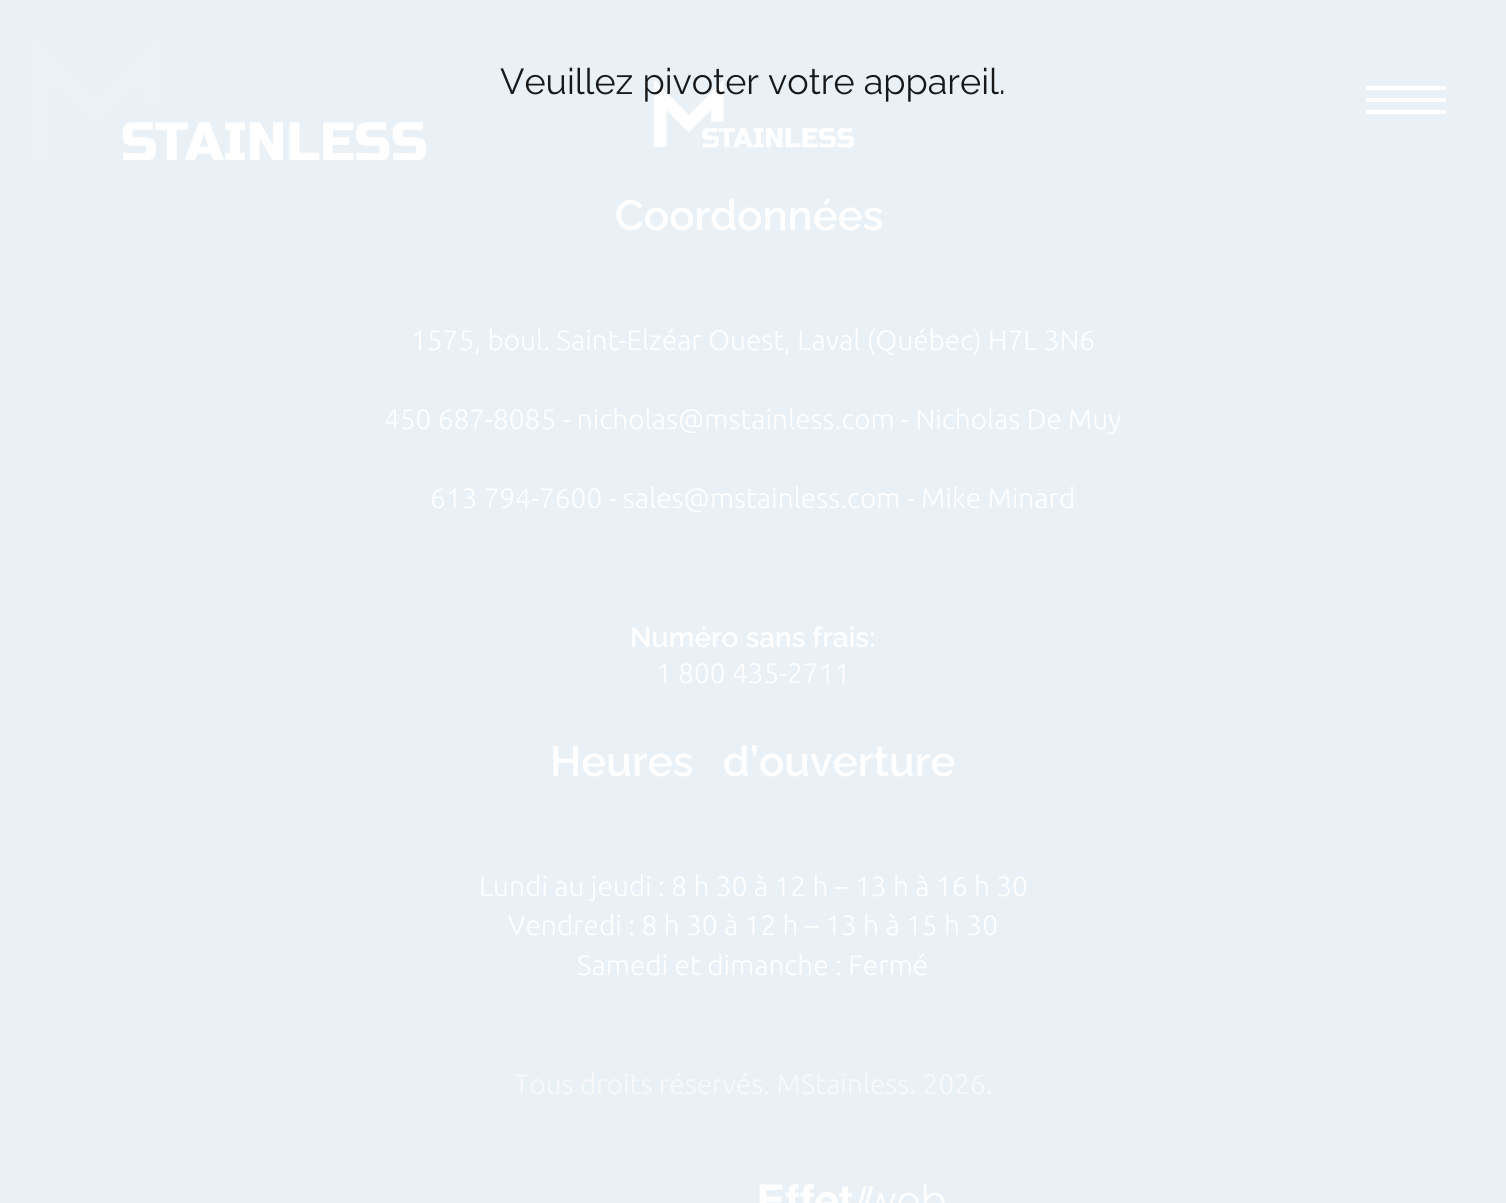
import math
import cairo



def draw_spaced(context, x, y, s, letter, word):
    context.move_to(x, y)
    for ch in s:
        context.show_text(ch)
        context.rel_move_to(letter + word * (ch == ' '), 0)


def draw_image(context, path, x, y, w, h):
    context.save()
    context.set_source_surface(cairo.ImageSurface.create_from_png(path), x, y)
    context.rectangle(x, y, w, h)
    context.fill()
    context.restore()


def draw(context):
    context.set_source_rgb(233 / 255, 241 / 255, 247 / 255)
    context.paint()
    draw_image(context, "images/1.png", 26, 27, 400, 133)
    context.set_source_rgb(1, 1, 1)
    context.rectangle(1366, 86, 80, 4)
    context.fill()
    context.rectangle(1366, 98, 80, 4)
    context.fill()
    context.rectangle(1366, 110, 80, 4)
    context.fill()
    draw_image(context, "images/2.png", 654, 80, 200, 68)
    draw_image(context, "images/3.png", 759, 1184, 186, 19)
    context.select_font_face("Raleway")
    context.set_font_size(36)
    context.set_source_rgb(23 / 255, 24 / 255, 25 / 255)
    context.move_to(500, 94)
    context.show_text("Veuillez pivoter votre appareil.")
    context.select_font_face("Raleway SemiBold")
    context.set_font_size(42.1)
    context.set_source_rgb(1, 1, 1)
    context.move_to(615, 230)
    context.show_text("Coordonnées")
    context.select_font_face("Ubuntu Light")
    context.set_font_size(28)
    context.move_to(411, 350)
    context.show_text("1575, boul. Saint-Elzéar Ouest, Laval (Québec) H7L 3N6")
    context.move_to(384, 429)
    context.show_text("450 687-8085 - nicholas@mstainless.com - Nicholas De Muy")
    context.move_to(430, 508)
    context.show_text("613 794-7600 - sales@mstainless.com - Mike Minard")
    context.select_font_face("Raleway SemiBold")
    context.move_to(630, 647)
    context.show_text("Numéro sans frais:")
    context.select_font_face("Ubuntu Light")
    context.move_to(656, 683)
    context.show_text("1 800 435-2711")
    context.select_font_face("Raleway SemiBold")
    context.set_font_size(42.1)
    draw_spaced(context, 550, 776, "Heures d’ouverture", 0, 19)
    context.select_font_face("Ubuntu Light")
    context.set_font_size(28)
    context.move_to(479, 896)
    context.show_text("Lundi au jeudi : 8 h 30 à 12 h – 13 h à 16 h 30")
    context.move_to(508, 935)
    context.show_text("Vendredi : 8 h 30 à 12 h – 13 h à 15 h 30")
    context.move_to(577, 975)
    context.show_text("Samedi et dimanche : Fermé")
    context.set_source_rgb(249 / 255, 249 / 255, 250 / 255)
    context.move_to(514, 1094)
    context.show_text("Tous droits réservés. MStainless. 2026.")


surface = cairo.ImageSurface(cairo.Format.RGB24, 1506, 1203)
context = cairo.Context(surface)
options = cairo.FontOptions()
options.set_hint_metrics(cairo.HintMetrics.OFF)
options.set_hint_style(cairo.HintStyle.NONE)
context.set_font_options(options)
context.set_miter_limit(4)
draw(context)
surface.write_to_png("out.png")
